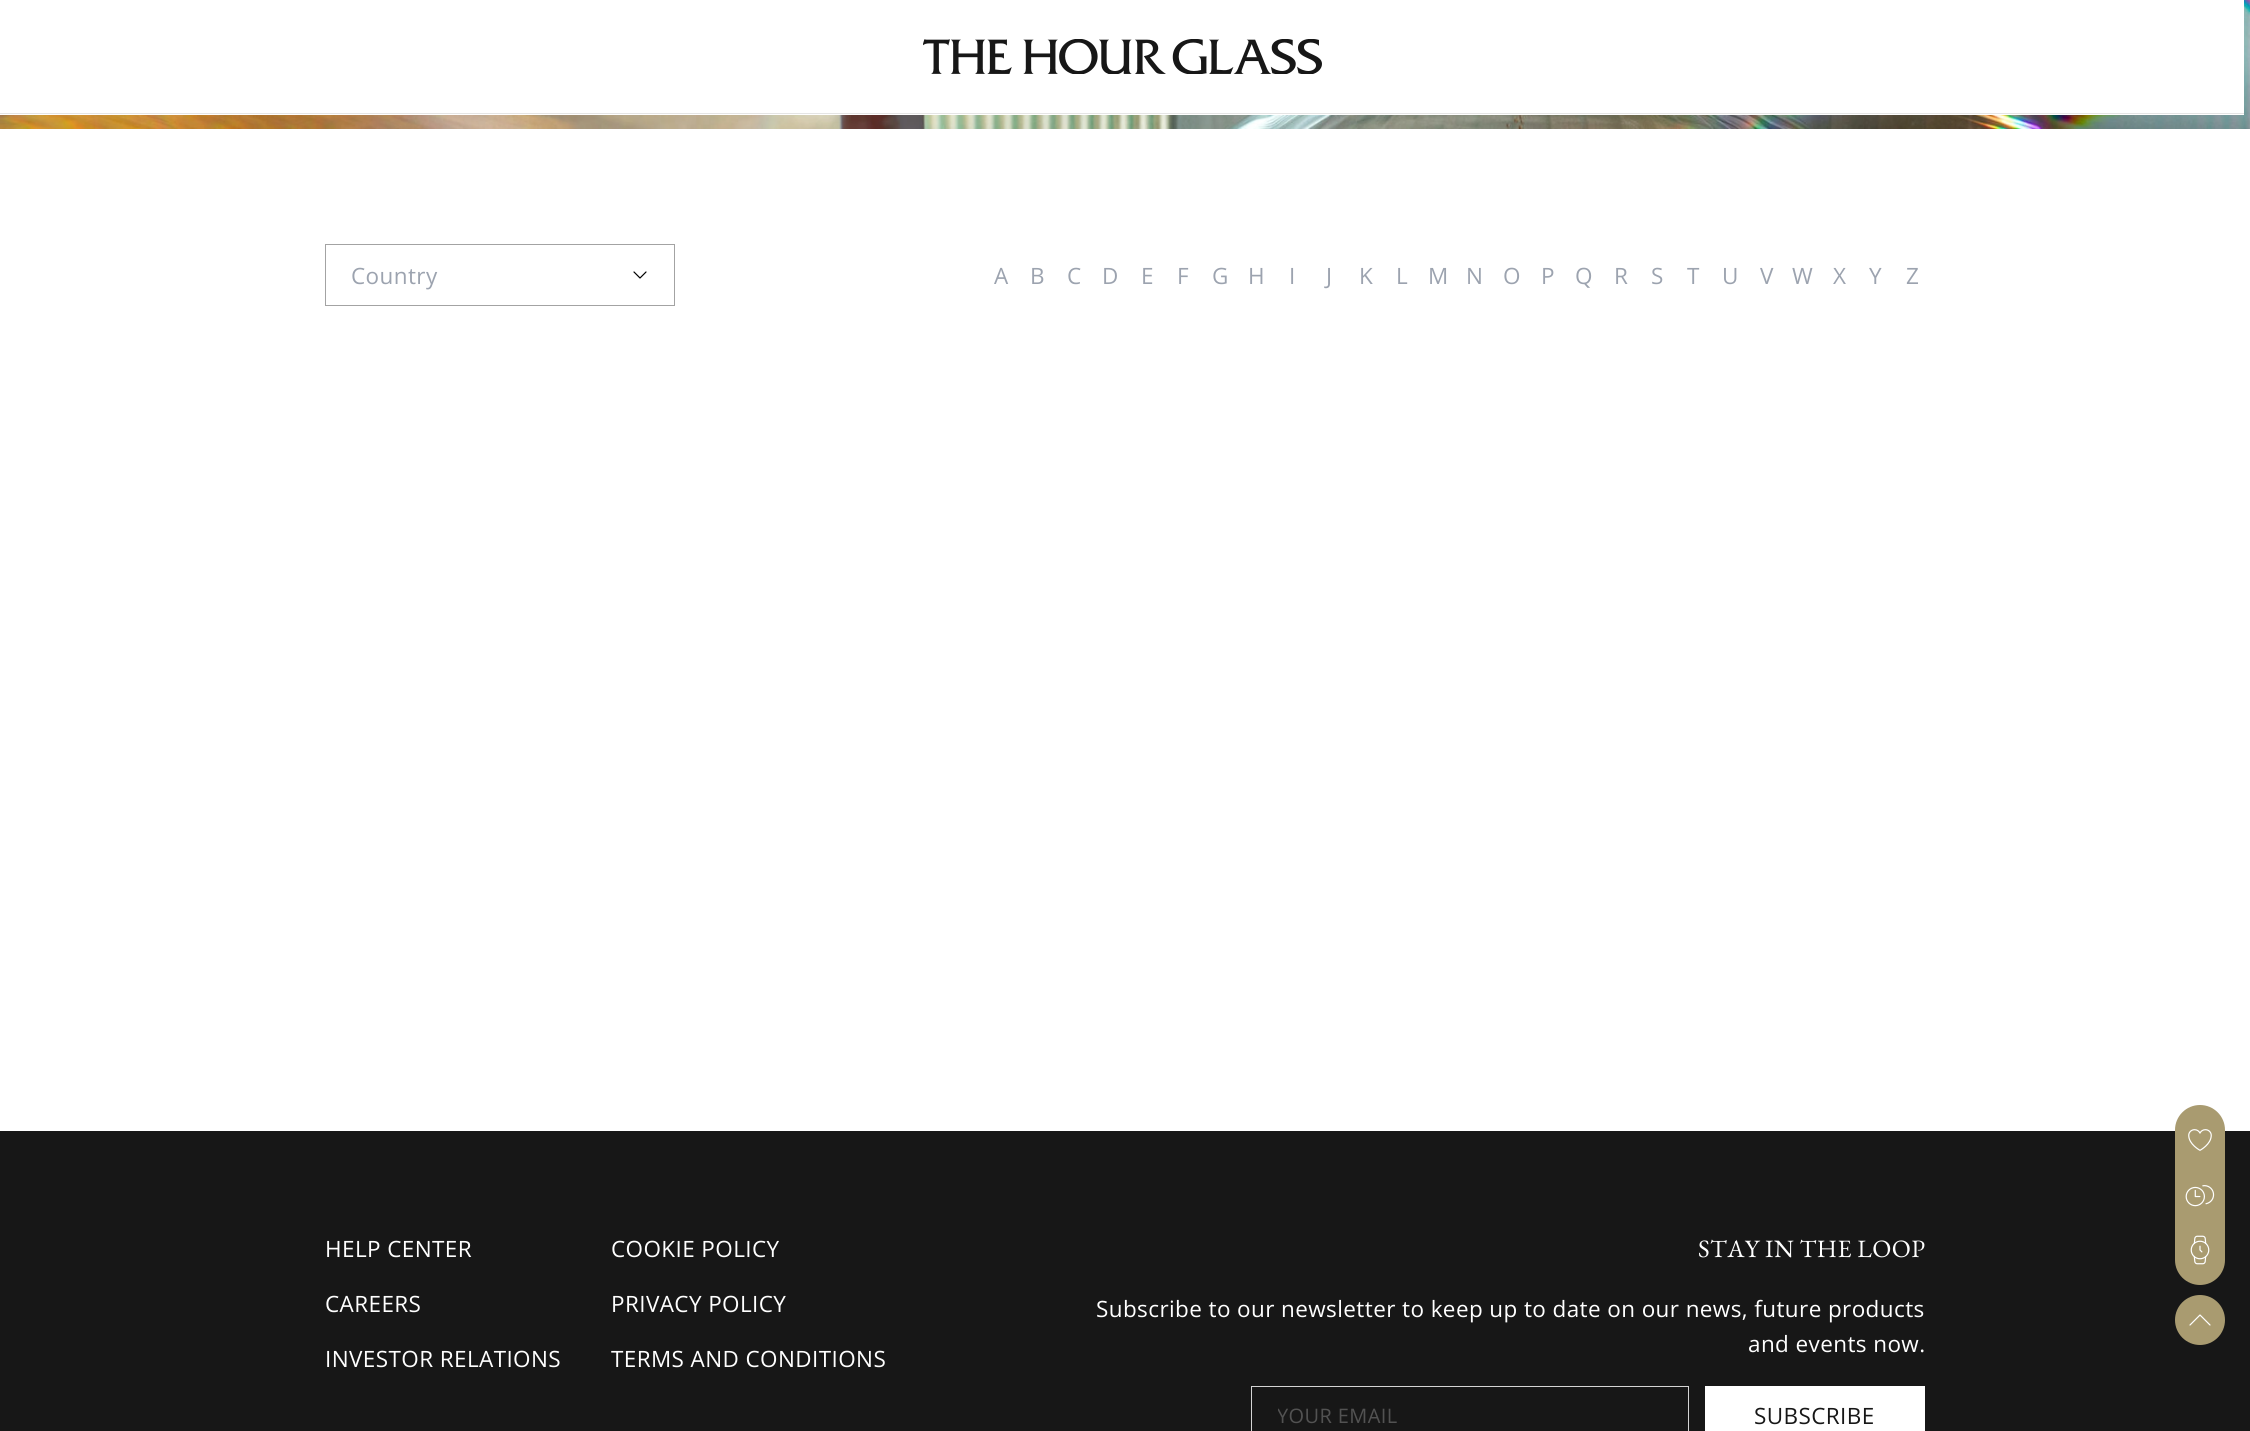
import math
import cairo



def draw_spaced(context, x, y, s, letter, word):
    context.move_to(x, y)
    for ch in s:
        context.show_text(ch)
        context.rel_move_to(letter + word * (ch == ' '), 0)


def rounded_rect(context, x, y, w, h, r):
    context.new_sub_path()
    for i, (u, v) in enumerate([(x + w - r, y + h - r), (x + r, y + h - r), (x + r, y + r), (x + w - r, y + r)]):
        context.arc(u, v, r, i * math.pi / 2, (i + 1) * math.pi / 2)
    context.close_path()


def draw_image(context, path, x, y, w, h):
    context.save()
    context.set_source_surface(cairo.ImageSurface.create_from_png(path), x, y)
    context.rectangle(x, y, w, h)
    context.fill()
    context.restore()


def draw(context):
    context.set_source_rgb(1, 1, 1)
    context.paint()
    draw_image(context, "images/2.png", 0, 0, 2250, 129)
    context.set_source_rgb(1, 1, 1)
    context.rectangle(0, 0, 2244, 113)
    context.fill()
    context.set_source_rgb(229 / 255, 229 / 255, 229 / 255)
    context.rectangle(0, 113, 2244, 1)
    context.fill()
    draw_image(context, "images/1.png", 923, 39, 399, 35)
    context.set_source_rgb(1, 1, 1)
    context.rectangle(0, 114, 2244, 1)
    context.fill()
    context.rectangle(325.5, 244.5, 349, 61)
    context.set_source_rgb(163 / 255, 163 / 255, 163 / 255)
    context.set_line_width(1)
    context.stroke()
    context.new_path()
    context.move_to(646, 272)
    context.line_to(640, 278)
    context.line_to(634, 272)
    context.set_source_rgb(0, 0, 0)
    context.set_line_width(1.2)
    context.set_line_cap(cairo.LineCap.ROUND)
    context.set_line_join(cairo.LineJoin.ROUND)
    context.stroke()
    context.set_source_rgb(23 / 255, 23 / 255, 23 / 255)
    context.rectangle(0, 1131, 2250, 300)
    context.fill()
    context.rectangle(1251.5, 1386.5, 437, 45)
    context.set_source_rgb(212 / 255, 212 / 255, 212 / 255)
    context.set_line_width(1)
    context.set_line_cap(cairo.LineCap.BUTT)
    context.set_line_join(cairo.LineJoin.MITER)
    context.stroke()
    context.set_source_rgb(1, 1, 1)
    context.rectangle(1705, 1386, 220, 45)
    context.fill()
    context.set_source_rgb(169 / 255, 155 / 255, 112 / 255)
    rounded_rect(context, 2175, 1105, 50, 180, 25)
    context.fill()
    draw_image(context, "images/3.png", 2188, 1129, 24, 22)
    draw_image(context, "images/4.png", 2185, 1185, 30, 22)
    draw_image(context, "images/5.png", 2190, 1235, 20, 30)
    context.arc(2200, 1320, 25, 0, 2 * math.pi)
    context.fill()
    context.new_path()
    context.move_to(2210, 1325)
    context.line_to(2200, 1315)
    context.line_to(2190, 1325)
    context.set_source_rgb(1, 1, 1)
    context.set_line_width(1.2)
    context.set_line_cap(cairo.LineCap.ROUND)
    context.set_line_join(cairo.LineJoin.ROUND)
    context.stroke()
    context.select_font_face("Open Sans")
    context.set_font_size(22.5)
    context.set_source_rgb(156 / 255, 163 / 255, 175 / 255)
    draw_spaced(context, 351, 284, "Country", 0.4, 0)
    draw_spaced(context, 994, 284, "A", 0.4, 0)
    draw_spaced(context, 1030, 284, "B", 0.4, 0)
    draw_spaced(context, 1067, 284, "C", 0.4, 0)
    draw_spaced(context, 1102, 284, "D", 0.4, 0)
    draw_spaced(context, 1141, 284, "E", 0.4, 0)
    draw_spaced(context, 1177, 284, "F", 0.4, 0)
    draw_spaced(context, 1212, 284, "G", 0.4, 0)
    draw_spaced(context, 1248, 284, "H", 0.4, 0)
    draw_spaced(context, 1289, 284, "I", 0.4, 0)
    draw_spaced(context, 1326, 284, "J", 0.4, 0)
    draw_spaced(context, 1359, 284, "K", 0.4, 0)
    draw_spaced(context, 1396, 284, "L", 0.4, 0)
    draw_spaced(context, 1428, 284, "M", 0.4, 0)
    draw_spaced(context, 1466, 284, "N", 0.4, 0)
    draw_spaced(context, 1503, 284, "O", 0.4, 0)
    draw_spaced(context, 1541, 284, "P", 0.4, 0)
    draw_spaced(context, 1575, 284, "Q", 0.4, 0)
    draw_spaced(context, 1614, 284, "R", 0.4, 0)
    draw_spaced(context, 1651, 284, "S", 0.4, 0)
    draw_spaced(context, 1687, 284, "T", 0.4, 0)
    draw_spaced(context, 1722, 284, "U", 0.4, 0)
    draw_spaced(context, 1760, 284, "V", 0.4, 0)
    draw_spaced(context, 1792, 284, "W", 0.4, 0)
    draw_spaced(context, 1833, 284, "X", 0.4, 0)
    draw_spaced(context, 1869, 284, "Y", 0.4, 0)
    draw_spaced(context, 1906, 284, "Z", 0.4, 0)
    context.set_source_rgb(1, 1, 1)
    draw_spaced(context, 325, 1257, "HELP CENTER", 0.4, 0)
    draw_spaced(context, 325, 1312, "CAREERS", 0.4, 0)
    draw_spaced(context, 325, 1367, "INVESTOR RELATIONS", 0.4, 0)
    draw_spaced(context, 611, 1257, "COOKIE POLICY", 0.4, 0)
    draw_spaced(context, 611, 1312, "PRIVACY POLICY", 0.4, 0)
    draw_spaced(context, 611, 1367, "TERMS AND CONDITIONS", 0.4, 0)
    context.select_font_face("EB Garamond")
    context.set_font_size(25)
    draw_spaced(context, 1698, 1257, "STAY IN THE LOOP", 0.4, 0)
    context.select_font_face("Open Sans")
    context.set_font_size(22.5)
    draw_spaced(context, 1096, 1317, "Subscribe to our newsletter to keep up to date on our news, future products", 0.4, 0)
    draw_spaced(context, 1748, 1352, "and events now.", 0.4, 0)
    context.save()
    context.rectangle(1278, 1403, 385, 27)
    context.clip()
    context.set_font_size(20)
    context.set_source_rgb(82 / 255, 82 / 255, 82 / 255)
    draw_spaced(context, 1277, 1423, "YOUR EMAIL", 0.4, 0)
    context.restore()
    context.set_source_rgb(23 / 255, 23 / 255, 23 / 255)
    draw_spaced(context, 1754, 1424, "SUBSCRIBE", 0.4, 0)


surface = cairo.ImageSurface(cairo.Format.RGB24, 2250, 1431)
context = cairo.Context(surface)
options = cairo.FontOptions()
options.set_hint_metrics(cairo.HintMetrics.OFF)
options.set_hint_style(cairo.HintStyle.NONE)
context.set_font_options(options)
context.set_miter_limit(4)
draw(context)
surface.write_to_png("out.png")
